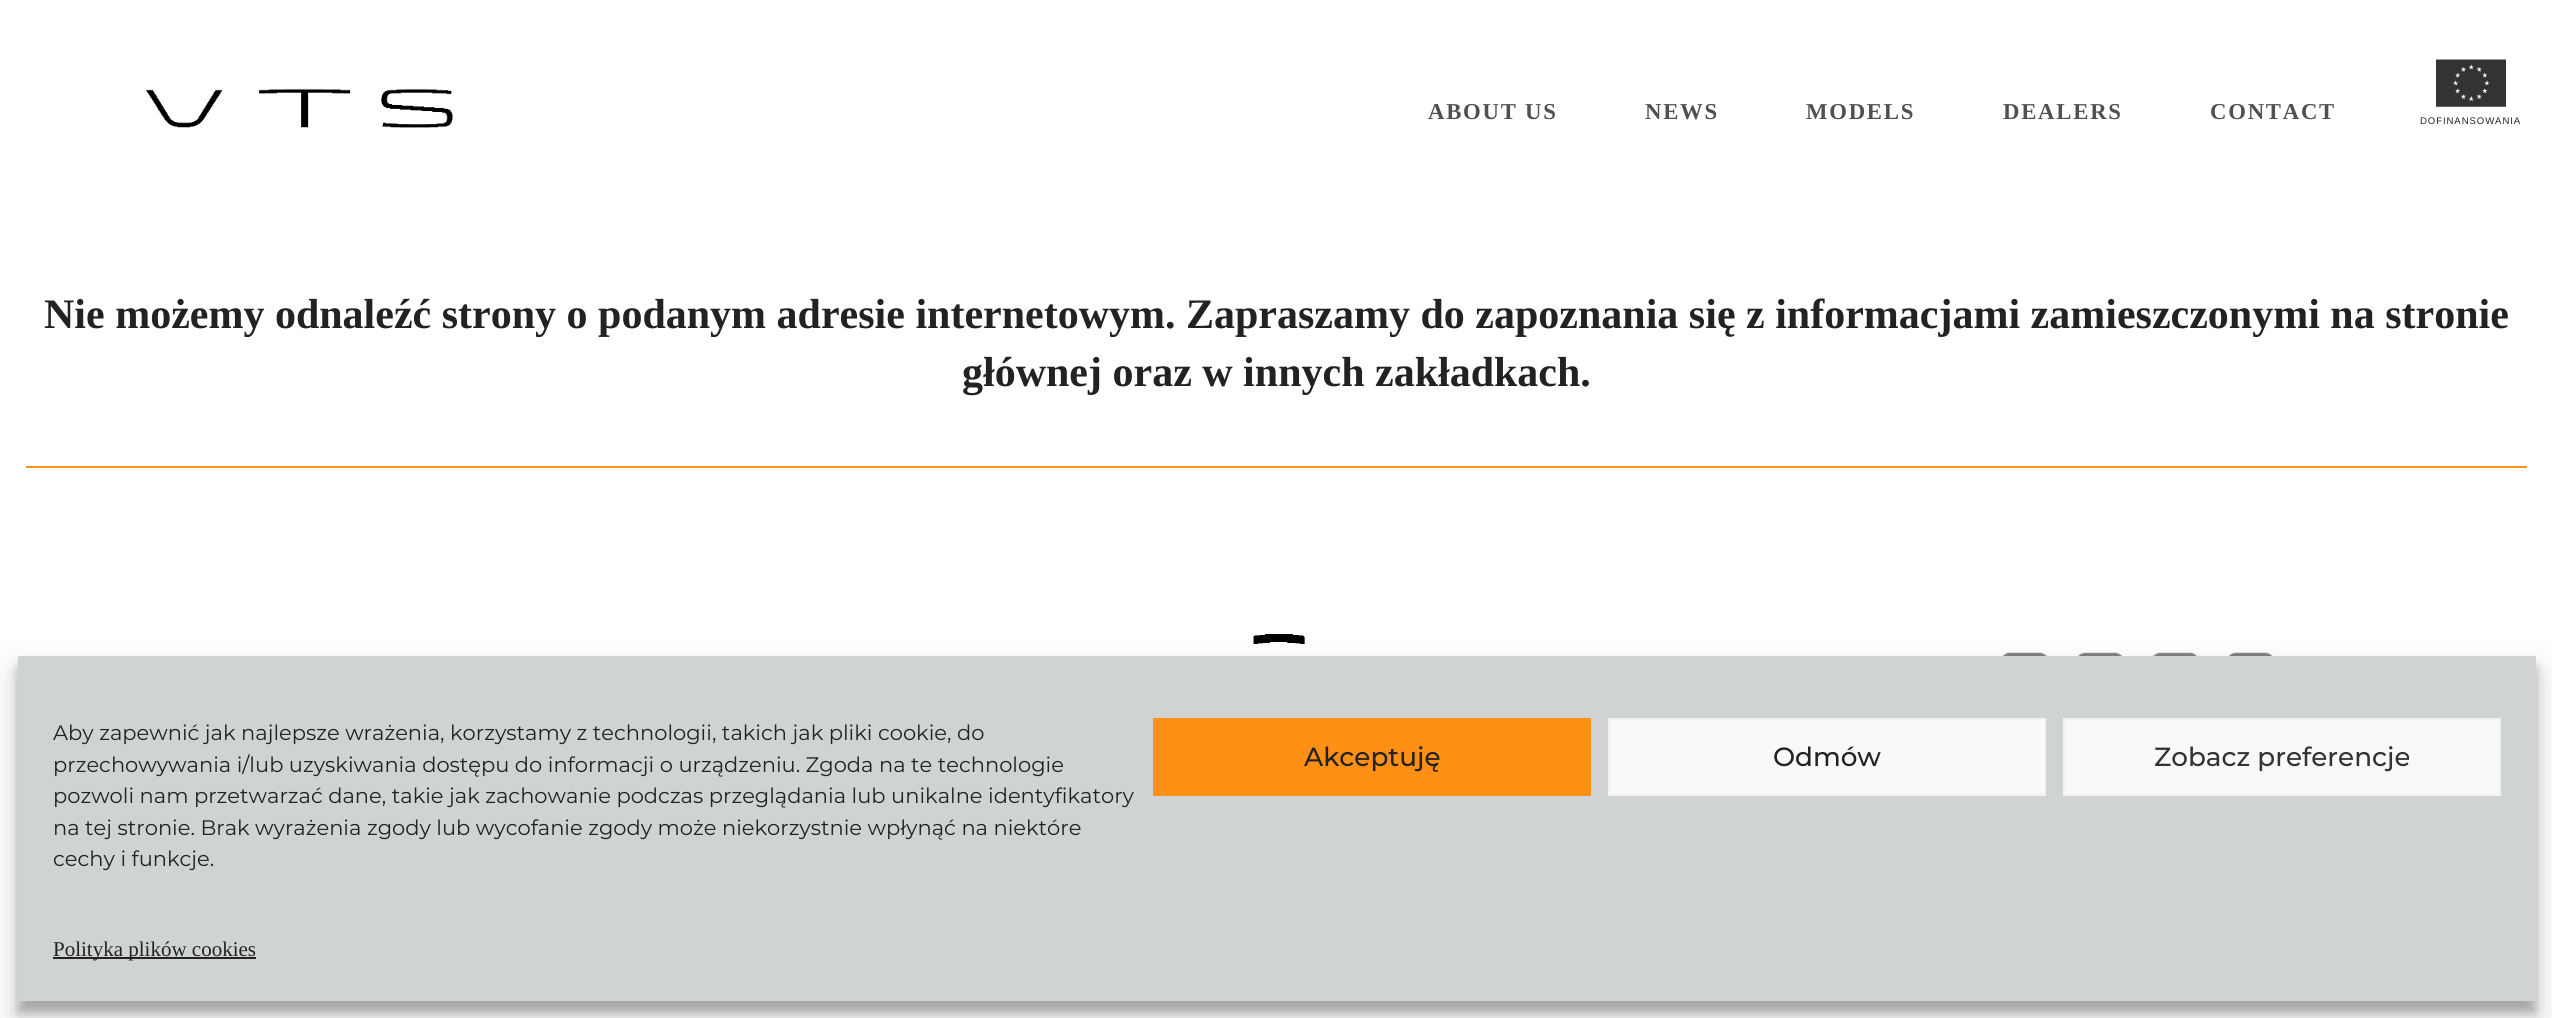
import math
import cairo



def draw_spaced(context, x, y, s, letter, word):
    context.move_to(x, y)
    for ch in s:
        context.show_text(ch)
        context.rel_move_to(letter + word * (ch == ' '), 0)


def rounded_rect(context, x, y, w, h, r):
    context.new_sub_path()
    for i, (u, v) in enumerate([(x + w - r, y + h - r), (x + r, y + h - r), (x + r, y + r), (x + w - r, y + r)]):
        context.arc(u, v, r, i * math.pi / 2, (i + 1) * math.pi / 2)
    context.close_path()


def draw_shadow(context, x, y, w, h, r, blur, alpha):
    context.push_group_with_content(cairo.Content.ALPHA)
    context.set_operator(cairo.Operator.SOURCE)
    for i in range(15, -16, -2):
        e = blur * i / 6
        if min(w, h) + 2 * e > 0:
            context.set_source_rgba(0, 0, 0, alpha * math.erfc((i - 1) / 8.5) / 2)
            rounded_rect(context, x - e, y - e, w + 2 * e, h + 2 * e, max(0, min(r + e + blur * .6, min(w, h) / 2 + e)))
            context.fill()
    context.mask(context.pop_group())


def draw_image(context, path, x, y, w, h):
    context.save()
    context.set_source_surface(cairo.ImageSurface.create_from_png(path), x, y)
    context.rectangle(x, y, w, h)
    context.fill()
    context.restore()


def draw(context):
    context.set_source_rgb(1, 1, 1)
    context.paint()
    draw_image(context, "images/1.png", 146, 88, 307, 40)
    draw_image(context, "images/2.png", 2436, 59, 70, 48)
    context.set_source_rgb(1, 144 / 255, 21 / 255)
    context.rectangle(26, 466, 2501, 2)
    context.fill()
    draw_image(context, "images/3.png", 1253, 634, 52, 10)
    draw_image(context, "images/4.png", 2000, 652, 50, 4)
    draw_image(context, "images/5.png", 2075, 652, 50, 4)
    draw_image(context, "images/6.png", 2150, 652, 50, 4)
    draw_image(context, "images/7.png", 2226, 652, 49, 4)
    context.set_source_rgb(0, 0, 0)
    draw_shadow(context, 18, 667, 2518, 345, 0, 5, 0.23)
    draw_shadow(context, 18, 674, 2518, 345, 0, 17.5, 0.19)
    context.set_source_rgb(208 / 255, 211 / 255, 212 / 255)
    context.rectangle(18, 656, 2518, 345)
    context.fill()
    context.set_source_rgb(1, 144 / 255, 21 / 255)
    context.rectangle(1153, 718, 438, 78)
    context.fill()
    context.set_source_rgb(249 / 255, 249 / 255, 249 / 255)
    context.rectangle(1609, 719, 436, 76)
    context.fill_preserve()
    context.set_source_rgb(242 / 255, 242 / 255, 242 / 255)
    context.stroke()
    context.set_source_rgb(249 / 255, 249 / 255, 249 / 255)
    context.rectangle(2064, 719, 436, 76)
    context.fill_preserve()
    context.set_source_rgb(242 / 255, 242 / 255, 242 / 255)
    context.stroke()
    context.set_source_rgb(34 / 255, 34 / 255, 35 / 255)
    context.rectangle(53, 957, 203, 2)
    context.fill()
    context.select_font_face("Liberation Serif", cairo.FontSlant.NORMAL, cairo.FontWeight.BOLD)
    context.set_font_size(22.75)
    context.set_source_rgb(80 / 255, 80 / 255, 80 / 255)
    draw_spaced(context, 1428, 119, "ABOUT US", 1.75, 0)
    draw_spaced(context, 1645, 119, "NEWS", 1.75, 0)
    draw_spaced(context, 1806, 119, "MODELS", 1.75, 0)
    draw_spaced(context, 2003, 119, "DEALERS", 1.75, 0)
    draw_spaced(context, 2210, 119, "CONTACT", 1.75, 0)
    context.select_font_face("Liberation Sans")
    context.set_font_size(9.6)
    context.set_source_rgb(34 / 255, 34 / 255, 34 / 255)
    draw_spaced(context, 2420, 124, "DOFINANSOWANIA", 0.9, 0)
    context.select_font_face("Liberation Serif", cairo.FontSlant.NORMAL, cairo.FontWeight.BOLD)
    context.set_font_size(42)
    context.move_to(44, 328)
    context.show_text("Nie możemy odnaleźć strony o podanym adresie internetowym. Zapraszamy do zapoznania się z informacjami zamieszczonymi na stronie")
    context.move_to(962, 386)
    context.show_text("głównej oraz w innych zakładkach.")
    context.select_font_face("Montserrat")
    context.set_font_size(21)
    context.move_to(53, 740)
    context.show_text("Aby zapewnić jak najlepsze wrażenia, korzystamy z technologii, takich jak pliki cookie, do")
    context.move_to(53, 772)
    context.show_text("przechowywania i/lub uzyskiwania dostępu do informacji o urządzeniu. Zgoda na te technologie")
    context.move_to(53, 803)
    context.show_text("pozwoli nam przetwarzać dane, takie jak zachowanie podczas przeglądania lub unikalne identyfikatory")
    context.move_to(53, 835)
    context.show_text("na tej stronie. Brak wyrażenia zgody lub wycofanie zgody może niekorzystnie wpłynąć na niektóre")
    context.move_to(53, 866)
    context.show_text("cechy i funkcje.")
    context.select_font_face("Montserrat Medium")
    context.set_font_size(26.25)
    context.move_to(1304, 766)
    context.show_text("Akceptuję")
    context.move_to(1773, 766)
    context.show_text("Odmów")
    context.set_source_rgb(51 / 255, 51 / 255, 51 / 255)
    context.move_to(2154, 766)
    context.show_text("Zobacz preferencje")
    context.select_font_face("Liberation Serif")
    context.set_font_size(21)
    context.set_source_rgb(34 / 255, 34 / 255, 34 / 255)
    context.move_to(53, 956)
    context.show_text("Polityka plików cookies")


surface = cairo.ImageSurface(cairo.Format.RGB24, 2552, 1018)
context = cairo.Context(surface)
options = cairo.FontOptions()
options.set_hint_metrics(cairo.HintMetrics.OFF)
options.set_hint_style(cairo.HintStyle.NONE)
context.set_font_options(options)
context.set_miter_limit(4)
draw(context)
surface.write_to_png("out.png")
